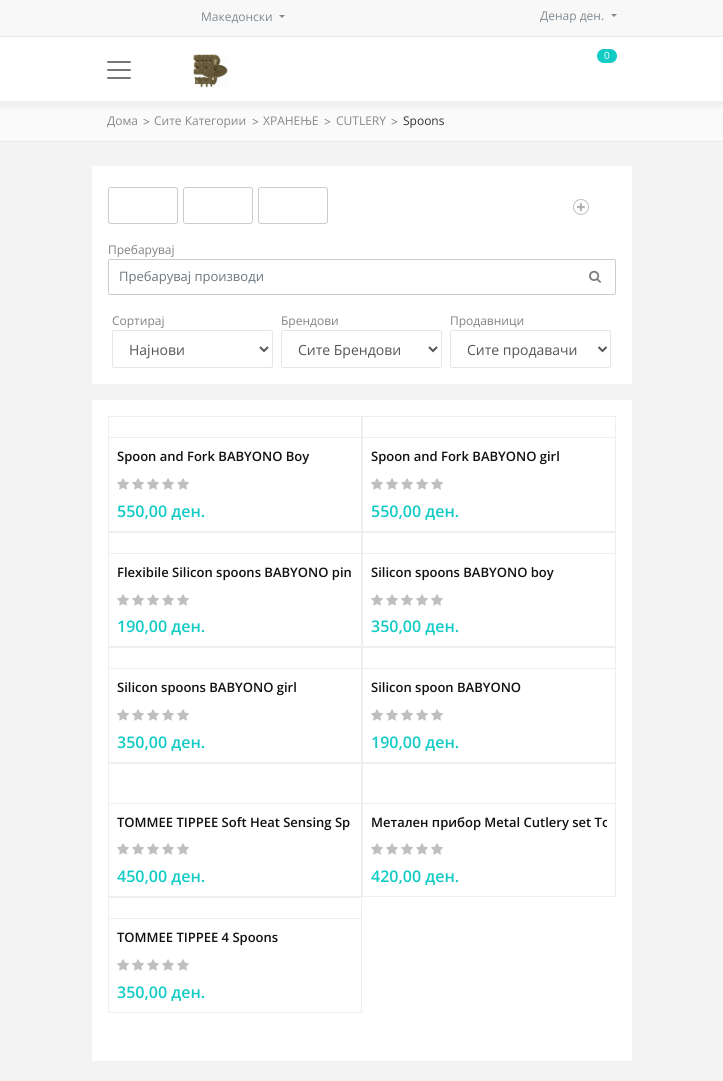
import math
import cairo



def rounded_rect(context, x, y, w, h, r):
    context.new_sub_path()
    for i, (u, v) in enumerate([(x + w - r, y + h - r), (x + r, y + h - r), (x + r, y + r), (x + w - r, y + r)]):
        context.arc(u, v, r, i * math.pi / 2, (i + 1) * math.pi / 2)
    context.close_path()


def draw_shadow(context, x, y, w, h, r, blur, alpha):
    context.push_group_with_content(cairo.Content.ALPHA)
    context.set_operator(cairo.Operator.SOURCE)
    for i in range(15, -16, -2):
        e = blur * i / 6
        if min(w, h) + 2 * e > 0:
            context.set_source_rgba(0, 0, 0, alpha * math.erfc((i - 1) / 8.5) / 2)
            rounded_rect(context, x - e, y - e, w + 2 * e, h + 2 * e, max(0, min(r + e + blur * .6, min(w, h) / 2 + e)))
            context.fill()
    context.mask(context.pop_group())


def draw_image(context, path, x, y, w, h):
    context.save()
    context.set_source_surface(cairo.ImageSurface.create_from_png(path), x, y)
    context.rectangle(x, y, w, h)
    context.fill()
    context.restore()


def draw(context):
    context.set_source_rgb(243 / 255, 243 / 255, 243 / 255)
    context.paint()
    context.set_source_rgb(1, 1, 1)
    context.rectangle(0, 37, 723, 64)
    context.fill()
    context.set_source_rgb(250 / 255, 250 / 255, 250 / 255)
    context.rectangle(0, 101, 723, 40)
    context.fill()
    context.save()
    context.rectangle(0, 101, 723, 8)
    context.clip()
    context.set_source_rgb(0, 0, 0)
    draw_shadow(context, 0, 37, 723, 64, 0, 10, 0.1)
    context.restore()
    context.set_source_rgb(248 / 255, 248 / 255, 248 / 255)
    context.rectangle(0, 0, 723, 36)
    context.fill()
    context.set_source_rgb(233 / 255, 233 / 255, 233 / 255)
    context.rectangle(0, 36, 723, 1)
    context.fill()
    context.set_source_rgb(129 / 255, 138 / 255, 145 / 255)
    context.new_path()
    context.move_to(279, 15)
    context.line_to(285, 15)
    context.line_to(282, 18)
    context.close_path()
    context.fill()
    context.new_path()
    context.move_to(611, 14)
    context.line_to(617, 14)
    context.line_to(614, 17)
    context.close_path()
    context.fill()
    context.set_source_rgb(119 / 255, 119 / 255, 119 / 255)
    rounded_rect(context, 107, 61, 24, 2, 1)
    context.fill()
    rounded_rect(context, 107, 69, 24, 2, 1)
    context.fill()
    rounded_rect(context, 107, 77, 24, 2, 1)
    context.fill()
    draw_image(context, "images/1.png", 193, 54, 35, 34)
    context.set_source_rgb(18 / 255, 203 / 255, 196 / 255)
    rounded_rect(context, 597, 49, 20, 14, 7)
    context.fill()
    context.set_source_rgb(233 / 255, 233 / 255, 233 / 255)
    context.rectangle(0, 141, 723, 1)
    context.fill()
    context.set_source_rgb(1, 1, 1)
    context.rectangle(92, 166, 540, 218)
    context.fill()
    rounded_rect(context, 108.5, 187.5, 69, 36, 2.5)
    context.set_source_rgb(204 / 255, 204 / 255, 204 / 255)
    context.set_line_width(1)
    context.stroke()
    rounded_rect(context, 183.5, 187.5, 69, 36, 2.5)
    context.stroke()
    rounded_rect(context, 258.5, 187.5, 69, 36, 2.5)
    context.stroke()
    context.arc(581, 207, 7.5, 0, 2 * math.pi)
    context.set_source_rgb(194 / 255, 194 / 255, 194 / 255)
    context.stroke()
    draw_image(context, "images/2.png", 577, 203, 8, 8)
    rounded_rect(context, 108.5, 259.5, 507, 35, 1.5)
    context.set_source_rgb(204 / 255, 204 / 255, 204 / 255)
    context.stroke()
    draw_image(context, "images/3.png", 589, 270, 12, 13)
    rounded_rect(context, 112.5, 330.5, 160, 37, 1.5)
    context.set_source_rgb(230 / 255, 230 / 255, 230 / 255)
    context.stroke()
    context.new_path()
    context.move_to(260, 347)
    context.line_to(264, 351)
    context.line_to(268, 347)
    context.set_source_rgb(85 / 255, 85 / 255, 85 / 255)
    context.set_line_width(2)
    context.stroke()
    rounded_rect(context, 281.5, 330.5, 160, 37, 1.5)
    context.set_source_rgb(230 / 255, 230 / 255, 230 / 255)
    context.set_line_width(1)
    context.stroke()
    context.new_path()
    context.move_to(429, 347)
    context.line_to(433, 351)
    context.line_to(437, 347)
    context.set_source_rgb(85 / 255, 85 / 255, 85 / 255)
    context.set_line_width(2)
    context.stroke()
    rounded_rect(context, 450.5, 330.5, 160, 37, 1.5)
    context.set_source_rgb(230 / 255, 230 / 255, 230 / 255)
    context.set_line_width(1)
    context.stroke()
    context.new_path()
    context.move_to(598.5, 347)
    context.line_to(602.5, 351)
    context.line_to(606.5, 347)
    context.set_source_rgb(85 / 255, 85 / 255, 85 / 255)
    context.set_line_width(2)
    context.stroke()
    context.set_source_rgb(1, 1, 1)
    context.rectangle(92, 400, 540, 661)
    context.fill()
    context.rectangle(108.5, 416.5, 253, 115)
    context.set_source_rgb(238 / 255, 238 / 255, 238 / 255)
    context.set_line_width(1)
    context.stroke()
    context.rectangle(109, 437, 252, 1)
    context.fill()
    draw_image(context, "images/4.png", 117, 478, 12, 12)
    draw_image(context, "images/4.png", 132, 478, 12, 12)
    draw_image(context, "images/4.png", 147, 478, 12, 12)
    draw_image(context, "images/4.png", 162, 478, 12, 12)
    draw_image(context, "images/4.png", 177, 478, 12, 12)
    context.rectangle(362.5, 416.5, 253, 115)
    context.stroke()
    context.rectangle(363, 437, 252, 1)
    context.fill()
    draw_image(context, "images/4.png", 371, 478, 12, 12)
    draw_image(context, "images/4.png", 386, 478, 12, 12)
    draw_image(context, "images/4.png", 401, 478, 12, 12)
    draw_image(context, "images/4.png", 416, 478, 12, 12)
    draw_image(context, "images/4.png", 431, 478, 12, 12)
    context.rectangle(108.5, 532.5, 253, 114)
    context.stroke()
    context.rectangle(109, 553, 252, 1)
    context.fill()
    draw_image(context, "images/4.png", 117, 594, 12, 12)
    draw_image(context, "images/4.png", 132, 594, 12, 12)
    draw_image(context, "images/4.png", 147, 594, 12, 12)
    draw_image(context, "images/4.png", 162, 594, 12, 12)
    draw_image(context, "images/4.png", 177, 594, 12, 12)
    context.rectangle(362.5, 532.5, 253, 114)
    context.stroke()
    context.rectangle(363, 553, 252, 1)
    context.fill()
    draw_image(context, "images/4.png", 371, 594, 12, 12)
    draw_image(context, "images/4.png", 386, 594, 12, 12)
    draw_image(context, "images/4.png", 401, 594, 12, 12)
    draw_image(context, "images/4.png", 416, 594, 12, 12)
    draw_image(context, "images/4.png", 431, 594, 12, 12)
    context.rectangle(108.5, 647.5, 253, 115)
    context.stroke()
    context.rectangle(109, 668, 252, 1)
    context.fill()
    draw_image(context, "images/4.png", 117, 709, 12, 12)
    draw_image(context, "images/4.png", 132, 709, 12, 12)
    draw_image(context, "images/4.png", 147, 709, 12, 12)
    draw_image(context, "images/4.png", 162, 709, 12, 12)
    draw_image(context, "images/4.png", 177, 709, 12, 12)
    context.rectangle(362.5, 647.5, 253, 115)
    context.stroke()
    context.rectangle(363, 668, 252, 1)
    context.fill()
    draw_image(context, "images/4.png", 371, 709, 12, 12)
    draw_image(context, "images/4.png", 386, 709, 12, 12)
    draw_image(context, "images/4.png", 401, 709, 12, 12)
    draw_image(context, "images/4.png", 416, 709, 12, 12)
    draw_image(context, "images/4.png", 431, 709, 12, 12)
    context.rectangle(108.5, 763.5, 253, 133)
    context.stroke()
    context.rectangle(109, 803, 252, 1)
    context.fill()
    draw_image(context, "images/4.png", 117, 843, 12, 12)
    draw_image(context, "images/4.png", 132, 843, 12, 12)
    draw_image(context, "images/4.png", 147, 843, 12, 12)
    draw_image(context, "images/4.png", 162, 843, 12, 12)
    draw_image(context, "images/4.png", 177, 843, 12, 12)
    context.rectangle(362.5, 763.5, 253, 133)
    context.stroke()
    context.rectangle(363, 803, 252, 1)
    context.fill()
    draw_image(context, "images/4.png", 371, 843, 12, 12)
    draw_image(context, "images/4.png", 386, 843, 12, 12)
    draw_image(context, "images/4.png", 401, 843, 12, 12)
    draw_image(context, "images/4.png", 416, 843, 12, 12)
    draw_image(context, "images/4.png", 431, 843, 12, 12)
    context.rectangle(108.5, 897.5, 253, 115)
    context.stroke()
    context.rectangle(109, 918, 252, 1)
    context.fill()
    draw_image(context, "images/4.png", 117, 959, 12, 12)
    draw_image(context, "images/4.png", 132, 959, 12, 12)
    draw_image(context, "images/4.png", 147, 959, 12, 12)
    draw_image(context, "images/4.png", 162, 959, 12, 12)
    draw_image(context, "images/4.png", 177, 959, 12, 12)
    context.select_font_face("Open Sans")
    context.set_font_size(12)
    context.set_source_rgb(129 / 255, 138 / 255, 145 / 255)
    context.move_to(201, 21)
    context.show_text("Mакедонски")
    context.move_to(540, 20)
    context.show_text("Денар ден.")
    context.set_font_size(10)
    context.set_source_rgb(1, 1, 1)
    context.move_to(604, 59)
    context.show_text("0")
    context.set_font_size(12)
    context.set_source_rgb(136 / 255, 136 / 255, 136 / 255)
    context.move_to(107, 125)
    context.show_text("Дома")
    context.set_source_rgb(119 / 255, 119 / 255, 119 / 255)
    context.move_to(143, 126)
    context.show_text(">")
    context.set_source_rgb(136 / 255, 136 / 255, 136 / 255)
    context.move_to(154, 125)
    context.show_text("Сите Категории")
    context.set_source_rgb(119 / 255, 119 / 255, 119 / 255)
    context.move_to(252, 126)
    context.show_text(">")
    context.set_source_rgb(136 / 255, 136 / 255, 136 / 255)
    context.move_to(263, 125)
    context.show_text("ХРАНЕЊЕ")
    context.set_source_rgb(119 / 255, 119 / 255, 119 / 255)
    context.move_to(324, 126)
    context.show_text(">")
    context.set_source_rgb(136 / 255, 136 / 255, 136 / 255)
    context.move_to(336, 125)
    context.show_text("CUTLERY")
    context.set_source_rgb(119 / 255, 119 / 255, 119 / 255)
    context.move_to(391, 126)
    context.show_text(">")
    context.set_source_rgb(51 / 255, 51 / 255, 51 / 255)
    context.move_to(403, 125)
    context.show_text("Spoons")
    context.set_source_rgb(130 / 255, 130 / 255, 130 / 255)
    context.move_to(108, 254)
    context.show_text("Пребарувај")
    context.set_font_size(13)
    context.set_source_rgb(108 / 255, 117 / 255, 125 / 255)
    context.move_to(119, 281)
    context.show_text("Пребарувај производи")
    context.set_font_size(12)
    context.set_source_rgb(130 / 255, 130 / 255, 130 / 255)
    context.move_to(112, 325)
    context.show_text("Сортирај")
    context.set_font_size(14)
    context.set_source_rgb(85 / 255, 85 / 255, 85 / 255)
    context.move_to(129, 355)
    context.show_text("Најнови")
    context.set_font_size(12)
    context.set_source_rgb(130 / 255, 130 / 255, 130 / 255)
    context.move_to(281, 325)
    context.show_text("Брендови")
    context.set_font_size(14)
    context.set_source_rgb(85 / 255, 85 / 255, 85 / 255)
    context.move_to(298, 355)
    context.show_text("Сите Брендови")
    context.set_font_size(12)
    context.set_source_rgb(130 / 255, 130 / 255, 130 / 255)
    context.move_to(450, 325)
    context.show_text("Продавници")
    context.set_font_size(14)
    context.set_source_rgb(85 / 255, 85 / 255, 85 / 255)
    context.move_to(467, 355)
    context.show_text("Сите продавачи")
    context.select_font_face("Open Sans SemiBold")
    context.set_font_size(13)
    context.set_source_rgb(17 / 255, 17 / 255, 17 / 255)
    context.move_to(117, 461)
    context.show_text("Spoon and Fork BABYONO Boy")
    context.set_font_size(16)
    context.set_source_rgb(18 / 255, 203 / 255, 196 / 255)
    context.move_to(117, 517)
    context.show_text("550,00 ден.")
    context.set_font_size(13)
    context.set_source_rgb(17 / 255, 17 / 255, 17 / 255)
    context.move_to(371, 461)
    context.show_text("Spoon and Fork BABYONO girl")
    context.set_font_size(16)
    context.set_source_rgb(18 / 255, 203 / 255, 196 / 255)
    context.move_to(371, 517)
    context.show_text("550,00 ден.")
    context.set_font_size(13)
    context.set_source_rgb(17 / 255, 17 / 255, 17 / 255)
    context.move_to(117, 577)
    context.show_text("Flexibile Silicon spoons BABYONO pin")
    context.set_font_size(16)
    context.set_source_rgb(18 / 255, 203 / 255, 196 / 255)
    context.move_to(117, 632)
    context.show_text("190,00 ден.")
    context.set_font_size(13)
    context.set_source_rgb(17 / 255, 17 / 255, 17 / 255)
    context.move_to(371, 577)
    context.show_text("Silicon spoons BABYONO boy")
    context.set_font_size(16)
    context.set_source_rgb(18 / 255, 203 / 255, 196 / 255)
    context.move_to(371, 632)
    context.show_text("350,00 ден.")
    context.set_font_size(13)
    context.set_source_rgb(17 / 255, 17 / 255, 17 / 255)
    context.move_to(117, 692)
    context.show_text("Silicon spoons BABYONO girl")
    context.set_font_size(16)
    context.set_source_rgb(18 / 255, 203 / 255, 196 / 255)
    context.move_to(117, 748)
    context.show_text("350,00 ден.")
    context.set_font_size(13)
    context.set_source_rgb(17 / 255, 17 / 255, 17 / 255)
    context.move_to(371, 692)
    context.show_text("Silicon spoon BABYONO")
    context.set_font_size(16)
    context.set_source_rgb(18 / 255, 203 / 255, 196 / 255)
    context.move_to(371, 748)
    context.show_text("190,00 ден.")
    context.set_font_size(13)
    context.set_source_rgb(17 / 255, 17 / 255, 17 / 255)
    context.move_to(117, 827)
    context.show_text("TOMMEE TIPPEE Soft Heat Sensing Sp")
    context.set_font_size(16)
    context.set_source_rgb(18 / 255, 203 / 255, 196 / 255)
    context.move_to(117, 882)
    context.show_text("450,00 ден.")
    context.save()
    context.rectangle(371, 812, 236, 20)
    context.clip()
    context.set_font_size(13)
    context.set_source_rgb(17 / 255, 17 / 255, 17 / 255)
    context.move_to(371, 827)
    context.show_text("Метален прибор Metal Cutlery set To")
    context.restore()
    context.move_to(371, 882)
    context.show_text("420,00 ден.")
    context.set_font_size(13)
    context.set_source_rgb(17 / 255, 17 / 255, 17 / 255)
    context.move_to(117, 942)
    context.show_text("TOMMEE TIPPEE 4 Spoons")
    context.set_font_size(16)
    context.set_source_rgb(18 / 255, 203 / 255, 196 / 255)
    context.move_to(117, 998)
    context.show_text("350,00 ден.")


surface = cairo.ImageSurface(cairo.Format.RGB24, 723, 1081)
context = cairo.Context(surface)
options = cairo.FontOptions()
options.set_hint_metrics(cairo.HintMetrics.OFF)
options.set_hint_style(cairo.HintStyle.NONE)
context.set_font_options(options)
context.set_miter_limit(4)
draw(context)
surface.write_to_png("out.png")
